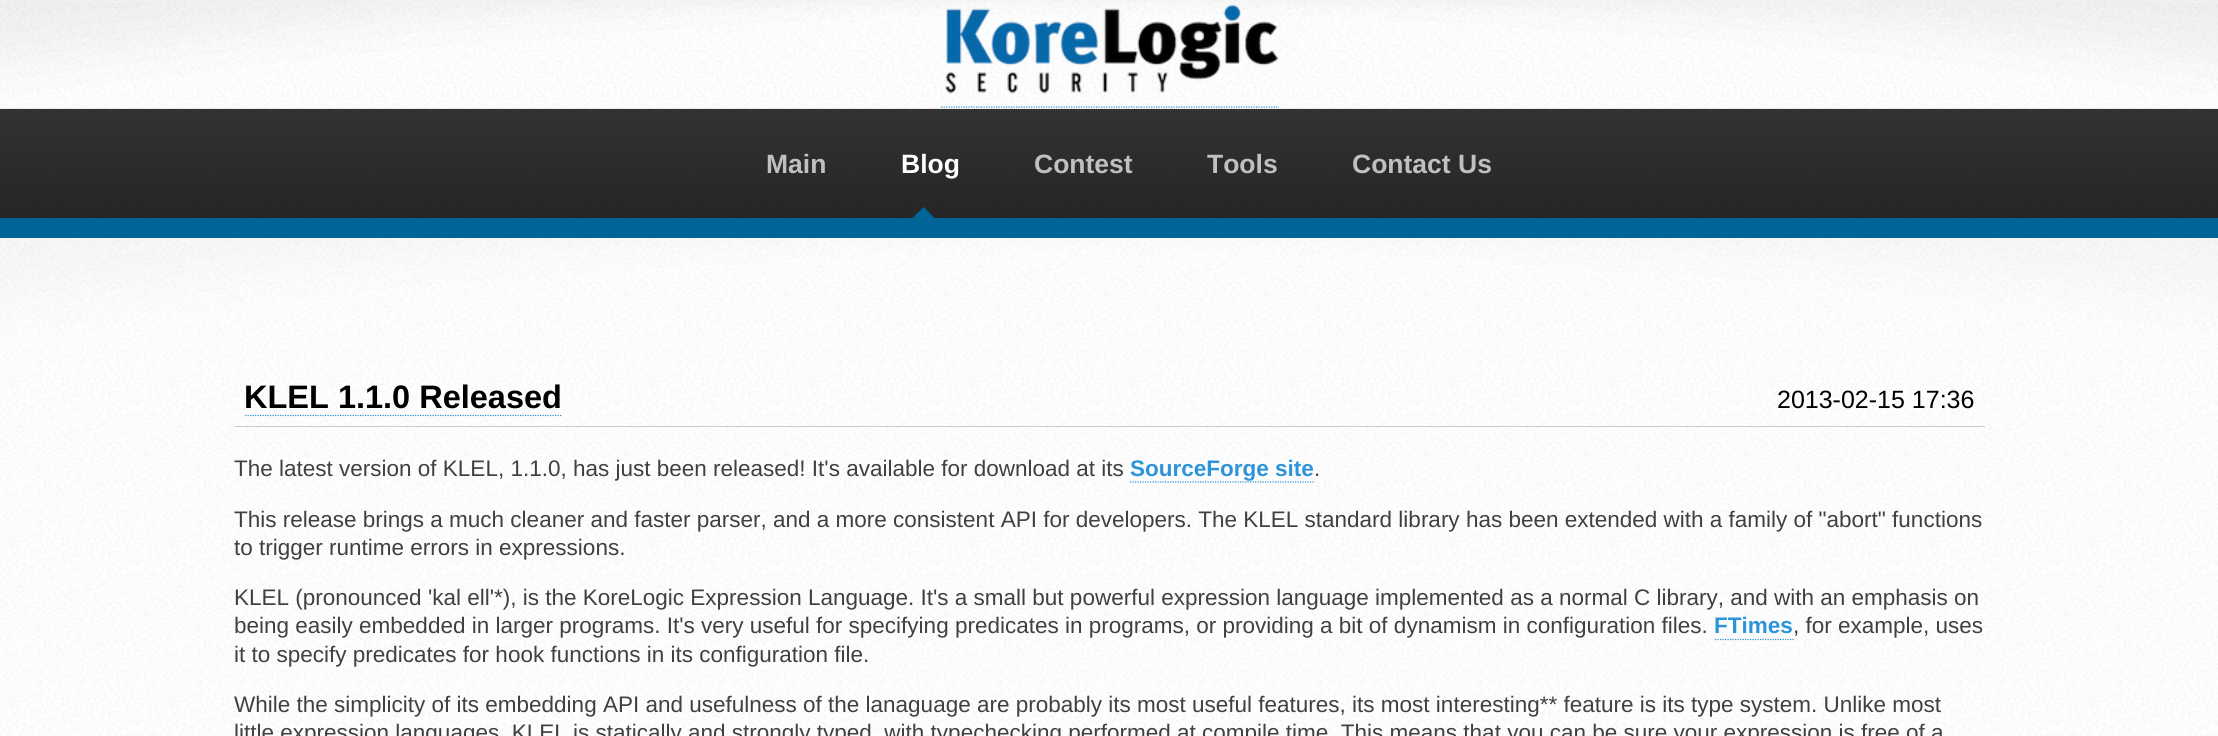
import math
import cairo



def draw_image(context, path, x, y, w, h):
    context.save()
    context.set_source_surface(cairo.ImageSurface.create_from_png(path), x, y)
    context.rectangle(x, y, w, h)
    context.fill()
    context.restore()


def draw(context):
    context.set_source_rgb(1, 1, 1)
    context.paint()
    draw_image(context, "images/1.png", 0, 0, 2218, 109)
    draw_image(context, "images/2.png", 945, 4, 334, 90)
    context.new_path()
    context.move_to(941, 107)
    context.line_to(1279, 107)
    context.set_source_rgb(44 / 255, 148 / 255, 218 / 255)
    context.set_line_width(1.2)
    context.set_dash([1.25, 1.25])
    context.stroke()
    context.set_source_rgb(51 / 255, 51 / 255, 51 / 255)
    context.rectangle(0, 109, 2218, 109)
    context.fill()
    draw_image(context, "images/3.png", 0, 108, 2218, 110)
    context.set_source_rgb(0, 102 / 255, 153 / 255)
    context.rectangle(0, 218, 2218, 20)
    context.fill()
    draw_image(context, "images/5.png", 0, 218, 2218, 19)
    context.new_path()
    context.move_to(923.5, 207)
    context.line_to(937.5, 221)
    context.line_to(923.5, 235)
    context.line_to(909.5, 221)
    context.close_path()
    context.fill()
    draw_image(context, "images/4.png", 913, 211, 22, 22)
    draw_image(context, "images/6.png", 0, 237, 2218, 499)
    context.set_source_rgb(204 / 255, 204 / 255, 204 / 255)
    context.rectangle(235, 426, 1750, 1)
    context.fill()
    context.new_path()
    context.move_to(245, 415.5)
    context.line_to(562.5, 415.5)
    context.set_source_rgb(44 / 255, 148 / 255, 218 / 255)
    context.stroke()
    context.new_path()
    context.move_to(1130, 482)
    context.line_to(1314, 482)
    context.stroke()
    context.new_path()
    context.move_to(1715, 639.5)
    context.line_to(1794, 639.5)
    context.stroke()
    context.select_font_face("Liberation Sans", cairo.FontSlant.NORMAL, cairo.FontWeight.BOLD)
    context.set_font_size(26.5)
    context.set_source_rgb(192 / 255, 192 / 255, 192 / 255)
    context.move_to(766, 173)
    context.show_text("Main")
    context.set_source_rgb(1, 1, 1)
    context.move_to(901, 173)
    context.show_text("Blog")
    context.set_source_rgb(192 / 255, 192 / 255, 192 / 255)
    context.move_to(1034, 173)
    context.show_text("Contest")
    context.move_to(1207, 173)
    context.show_text("Tools")
    context.move_to(1352, 173)
    context.show_text("Contact Us")
    context.set_font_size(32.5)
    context.set_source_rgb(0, 0, 0)
    context.move_to(244, 408)
    context.show_text("KLEL 1.1.0 Released")
    context.select_font_face("Liberation Sans")
    context.set_font_size(25)
    context.move_to(1777, 408)
    context.show_text("2013-02-15 17:36")
    context.set_font_size(22.5)
    context.set_source_rgb(64 / 255, 64 / 255, 64 / 255)
    context.move_to(234, 476)
    context.show_text("The latest version of KLEL, 1.1.0, has just been released! It's available for download at its")
    context.select_font_face("Liberation Sans", cairo.FontSlant.NORMAL, cairo.FontWeight.BOLD)
    context.set_source_rgb(44 / 255, 148 / 255, 218 / 255)
    context.move_to(1130, 476)
    context.show_text("SourceForge site")
    context.select_font_face("Liberation Sans")
    context.set_source_rgb(64 / 255, 64 / 255, 64 / 255)
    context.move_to(1314, 476)
    context.show_text(".")
    context.move_to(234, 527)
    context.show_text("This release brings a much cleaner and faster parser, and a more consistent API for developers. The KLEL standard library has been extended with a family of \"abort\" functions")
    context.move_to(234, 555)
    context.show_text("to trigger runtime errors in expressions.")
    context.move_to(234, 605)
    context.show_text("KLEL (pronounced 'kal ell'*), is the KoreLogic Expression Language. It's a small but powerful expression language implemented as a normal C library, and with an emphasis on")
    context.move_to(234, 633)
    context.show_text("being easily embedded in larger programs. It's very useful for specifying predicates in programs, or providing a bit of dynamism in configuration files.")
    context.select_font_face("Liberation Sans", cairo.FontSlant.NORMAL, cairo.FontWeight.BOLD)
    context.set_source_rgb(44 / 255, 148 / 255, 218 / 255)
    context.move_to(1714, 633)
    context.show_text("FTimes")
    context.select_font_face("Liberation Sans")
    context.set_source_rgb(64 / 255, 64 / 255, 64 / 255)
    context.move_to(1793, 633)
    context.show_text(", for example, uses")
    context.move_to(234, 662)
    context.show_text("it to specify predicates for hook functions in its configuration file.")
    context.move_to(234, 712)
    context.show_text("While the simplicity of its embedding API and usefulness of the lanaguage are probably its most useful features, its most interesting** feature is its type system. Unlike most")
    context.move_to(234, 740)
    context.show_text("little expression languages, KLEL is statically and strongly typed, with typechecking performed at compile time. This means that you can be sure your expression is free of a")


surface = cairo.ImageSurface(cairo.Format.RGB24, 2218, 736)
context = cairo.Context(surface)
options = cairo.FontOptions()
options.set_hint_metrics(cairo.HintMetrics.OFF)
options.set_hint_style(cairo.HintStyle.NONE)
context.set_font_options(options)
context.set_miter_limit(4)
draw(context)
surface.write_to_png("out.png")
